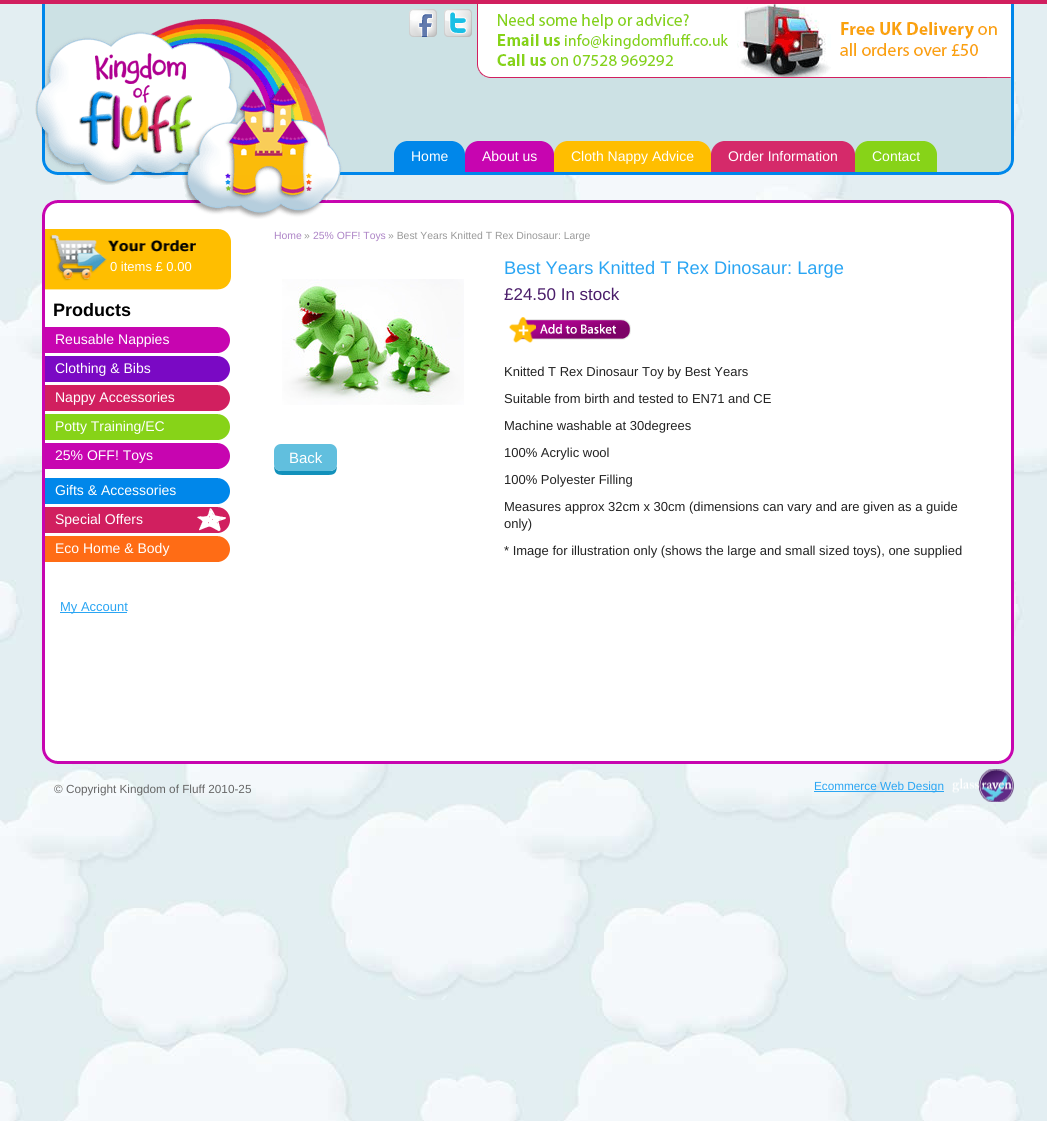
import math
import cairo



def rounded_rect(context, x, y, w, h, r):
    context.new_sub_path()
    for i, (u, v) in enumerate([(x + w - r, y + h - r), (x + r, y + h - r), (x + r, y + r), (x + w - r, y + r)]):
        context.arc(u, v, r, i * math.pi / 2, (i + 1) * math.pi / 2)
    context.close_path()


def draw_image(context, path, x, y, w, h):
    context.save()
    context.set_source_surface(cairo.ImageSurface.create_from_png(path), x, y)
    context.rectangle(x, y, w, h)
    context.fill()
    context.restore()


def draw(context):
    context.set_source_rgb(1, 1, 1)
    context.paint()
    draw_image(context, "images/1.png", 0, 4, 1047, 1117)
    context.set_source_rgb(209 / 255, 31 / 255, 95 / 255)
    context.rectangle(0, 0, 1047, 4)
    context.fill()
    draw_image(context, "images/2.png", 35, 4, 979, 171)
    draw_image(context, "images/3.png", 409, 9, 28, 28)
    draw_image(context, "images/4.png", 444, 9, 28, 28)
    draw_image(context, "images/5.png", 477, 4, 534, 74)
    draw_image(context, "images/6.png", 394, 141, 71, 31)
    draw_image(context, "images/7.png", 452, 141, 13, 13)
    draw_image(context, "images/8.png", 465, 141, 89, 31)
    draw_image(context, "images/9.png", 541, 141, 13, 13)
    draw_image(context, "images/10.png", 554, 141, 157, 31)
    draw_image(context, "images/11.png", 698, 141, 13, 13)
    draw_image(context, "images/12.png", 711, 141, 144, 31)
    draw_image(context, "images/13.png", 842, 141, 13, 13)
    draw_image(context, "images/14.png", 855, 141, 82, 31)
    draw_image(context, "images/15.png", 924, 141, 13, 13)
    draw_image(context, "images/16.png", 42, 175, 972, 44)
    draw_image(context, "images/17.png", 42, 219, 972, 525)
    draw_image(context, "images/18.png", 45, 229, 7, 61)
    draw_image(context, "images/19.png", 52, 229, 179, 61)
    draw_image(context, "images/20.png", 45, 327, 185, 26)
    draw_image(context, "images/21.png", 45, 356, 185, 26)
    draw_image(context, "images/22.png", 45, 385, 185, 26)
    draw_image(context, "images/23.png", 45, 414, 185, 26)
    draw_image(context, "images/20.png", 45, 443, 185, 26)
    draw_image(context, "images/24.png", 45, 478, 185, 26)
    draw_image(context, "images/25.png", 45, 507, 185, 26)
    draw_image(context, "images/26.png", 45, 536, 185, 26)
    context.set_source_rgb(42 / 255, 165 / 255, 243 / 255)
    context.rectangle(60, 612, 67, 1)
    context.fill()
    draw_image(context, "images/27.png", 282, 279, 182, 126)
    context.set_source_rgb(18 / 255, 145 / 255, 187 / 255)
    context.new_path()
    context.move_to(274, 464)
    context.curve_to(274, 476, 278, 475, 289, 475)
    context.line_to(322, 475)
    context.curve_to(333, 475, 337, 476, 337, 464)
    context.curve_to(337, 468, 334, 471, 330, 471)
    context.line_to(281, 471)
    context.curve_to(277, 471, 274, 468, 274, 464)
    context.close_path()
    context.fill()
    context.set_source_rgb(97 / 255, 191 / 255, 222 / 255)
    rounded_rect(context, 274, 444, 63, 27, 7)
    context.fill()
    draw_image(context, "images/28.png", 509, 317, 122, 26)
    draw_image(context, "images/29.png", 42, 744, 972, 20)
    draw_image(context, "images/30.png", 952, 769, 62, 33)
    context.set_source_rgb(42 / 255, 165 / 255, 243 / 255)
    context.rectangle(814, 791, 130, 1)
    context.fill()
    context.select_font_face("Liberation Sans")
    context.set_font_size(14)
    context.set_source_rgb(1, 1, 1)
    context.move_to(411, 161)
    context.show_text("Home")
    context.move_to(482, 161)
    context.show_text("About us")
    context.move_to(571, 161)
    context.show_text("Cloth Nappy Advice")
    context.move_to(728, 161)
    context.show_text("Order Information")
    context.move_to(872, 161)
    context.show_text("Contact")
    context.set_font_size(13)
    context.move_to(110, 271)
    context.show_text("0 items £ 0.00")
    context.select_font_face("Liberation Sans", cairo.FontSlant.NORMAL, cairo.FontWeight.BOLD)
    context.set_font_size(18)
    context.set_source_rgb(0, 0, 0)
    context.move_to(53, 316)
    context.show_text("Products")
    context.select_font_face("Liberation Sans")
    context.set_font_size(14)
    context.set_source_rgb(1, 1, 1)
    context.move_to(55, 344)
    context.show_text("Reusable Nappies")
    context.move_to(55, 373)
    context.show_text("Clothing & Bibs")
    context.move_to(55, 402)
    context.show_text("Nappy Accessories")
    context.move_to(55, 431)
    context.show_text("Potty Training/EC")
    context.move_to(55, 460)
    context.show_text("25% OFF! Toys")
    context.move_to(55, 495)
    context.show_text("Gifts & Accessories")
    context.move_to(55, 524)
    context.show_text("Special Offers")
    context.move_to(55, 553)
    context.show_text("Eco Home & Body")
    context.set_font_size(13)
    context.set_source_rgb(42 / 255, 165 / 255, 243 / 255)
    context.move_to(60, 611)
    context.show_text("My Account")
    context.set_font_size(10.4)
    context.set_source_rgb(173 / 255, 132 / 255, 198 / 255)
    context.move_to(274, 239)
    context.show_text("Home")
    context.set_source_rgb(153 / 255, 153 / 255, 153 / 255)
    context.move_to(304, 239)
    context.show_text("»")
    context.set_source_rgb(173 / 255, 132 / 255, 198 / 255)
    context.move_to(313, 239)
    context.show_text("25% OFF! Toys")
    context.set_source_rgb(153 / 255, 153 / 255, 153 / 255)
    context.move_to(388, 239)
    context.show_text("» Best Years Knitted T Rex Dinosaur: Large")
    context.set_font_size(15)
    context.set_source_rgb(1, 1, 1)
    context.move_to(289, 463)
    context.show_text("Back")
    context.set_font_size(18.25)
    context.set_source_rgb(42 / 255, 165 / 255, 243 / 255)
    context.move_to(504, 274)
    context.show_text("Best Years Knitted T Rex Dinosaur: Large")
    context.set_font_size(17)
    context.set_source_rgb(74 / 255, 29 / 255, 106 / 255)
    context.move_to(504, 300)
    context.show_text("£24.50 In stock")
    context.set_font_size(13)
    context.set_source_rgb(34 / 255, 34 / 255, 34 / 255)
    context.move_to(504, 376)
    context.show_text("Knitted T Rex Dinosaur Toy by Best Years")
    context.move_to(504, 403)
    context.show_text("Suitable from birth and tested to EN71 and CE")
    context.move_to(504, 430)
    context.show_text("Machine washable at 30degrees")
    context.move_to(504, 457)
    context.show_text("100% Acrylic wool")
    context.move_to(504, 484)
    context.show_text("100% Polyester Filling")
    context.move_to(504, 511)
    context.show_text("Measures approx 32cm x 30cm (dimensions can vary and are given as a guide")
    context.move_to(504, 528)
    context.show_text("only)")
    context.move_to(504, 555)
    context.show_text("* Image for illustration only (shows the large and small sized toys), one supplied")
    context.set_font_size(11.75)
    context.set_source_rgb(102 / 255, 102 / 255, 102 / 255)
    context.move_to(54, 793)
    context.show_text("© Copyright Kingdom of Fluff 2010-25")
    context.set_source_rgb(42 / 255, 165 / 255, 243 / 255)
    context.move_to(814, 790)
    context.show_text("Ecommerce Web Design")


surface = cairo.ImageSurface(cairo.Format.RGB24, 1047, 1121)
context = cairo.Context(surface)
options = cairo.FontOptions()
options.set_hint_metrics(cairo.HintMetrics.OFF)
options.set_hint_style(cairo.HintStyle.NONE)
context.set_font_options(options)
context.set_miter_limit(4)
draw(context)
surface.write_to_png("out.png")
